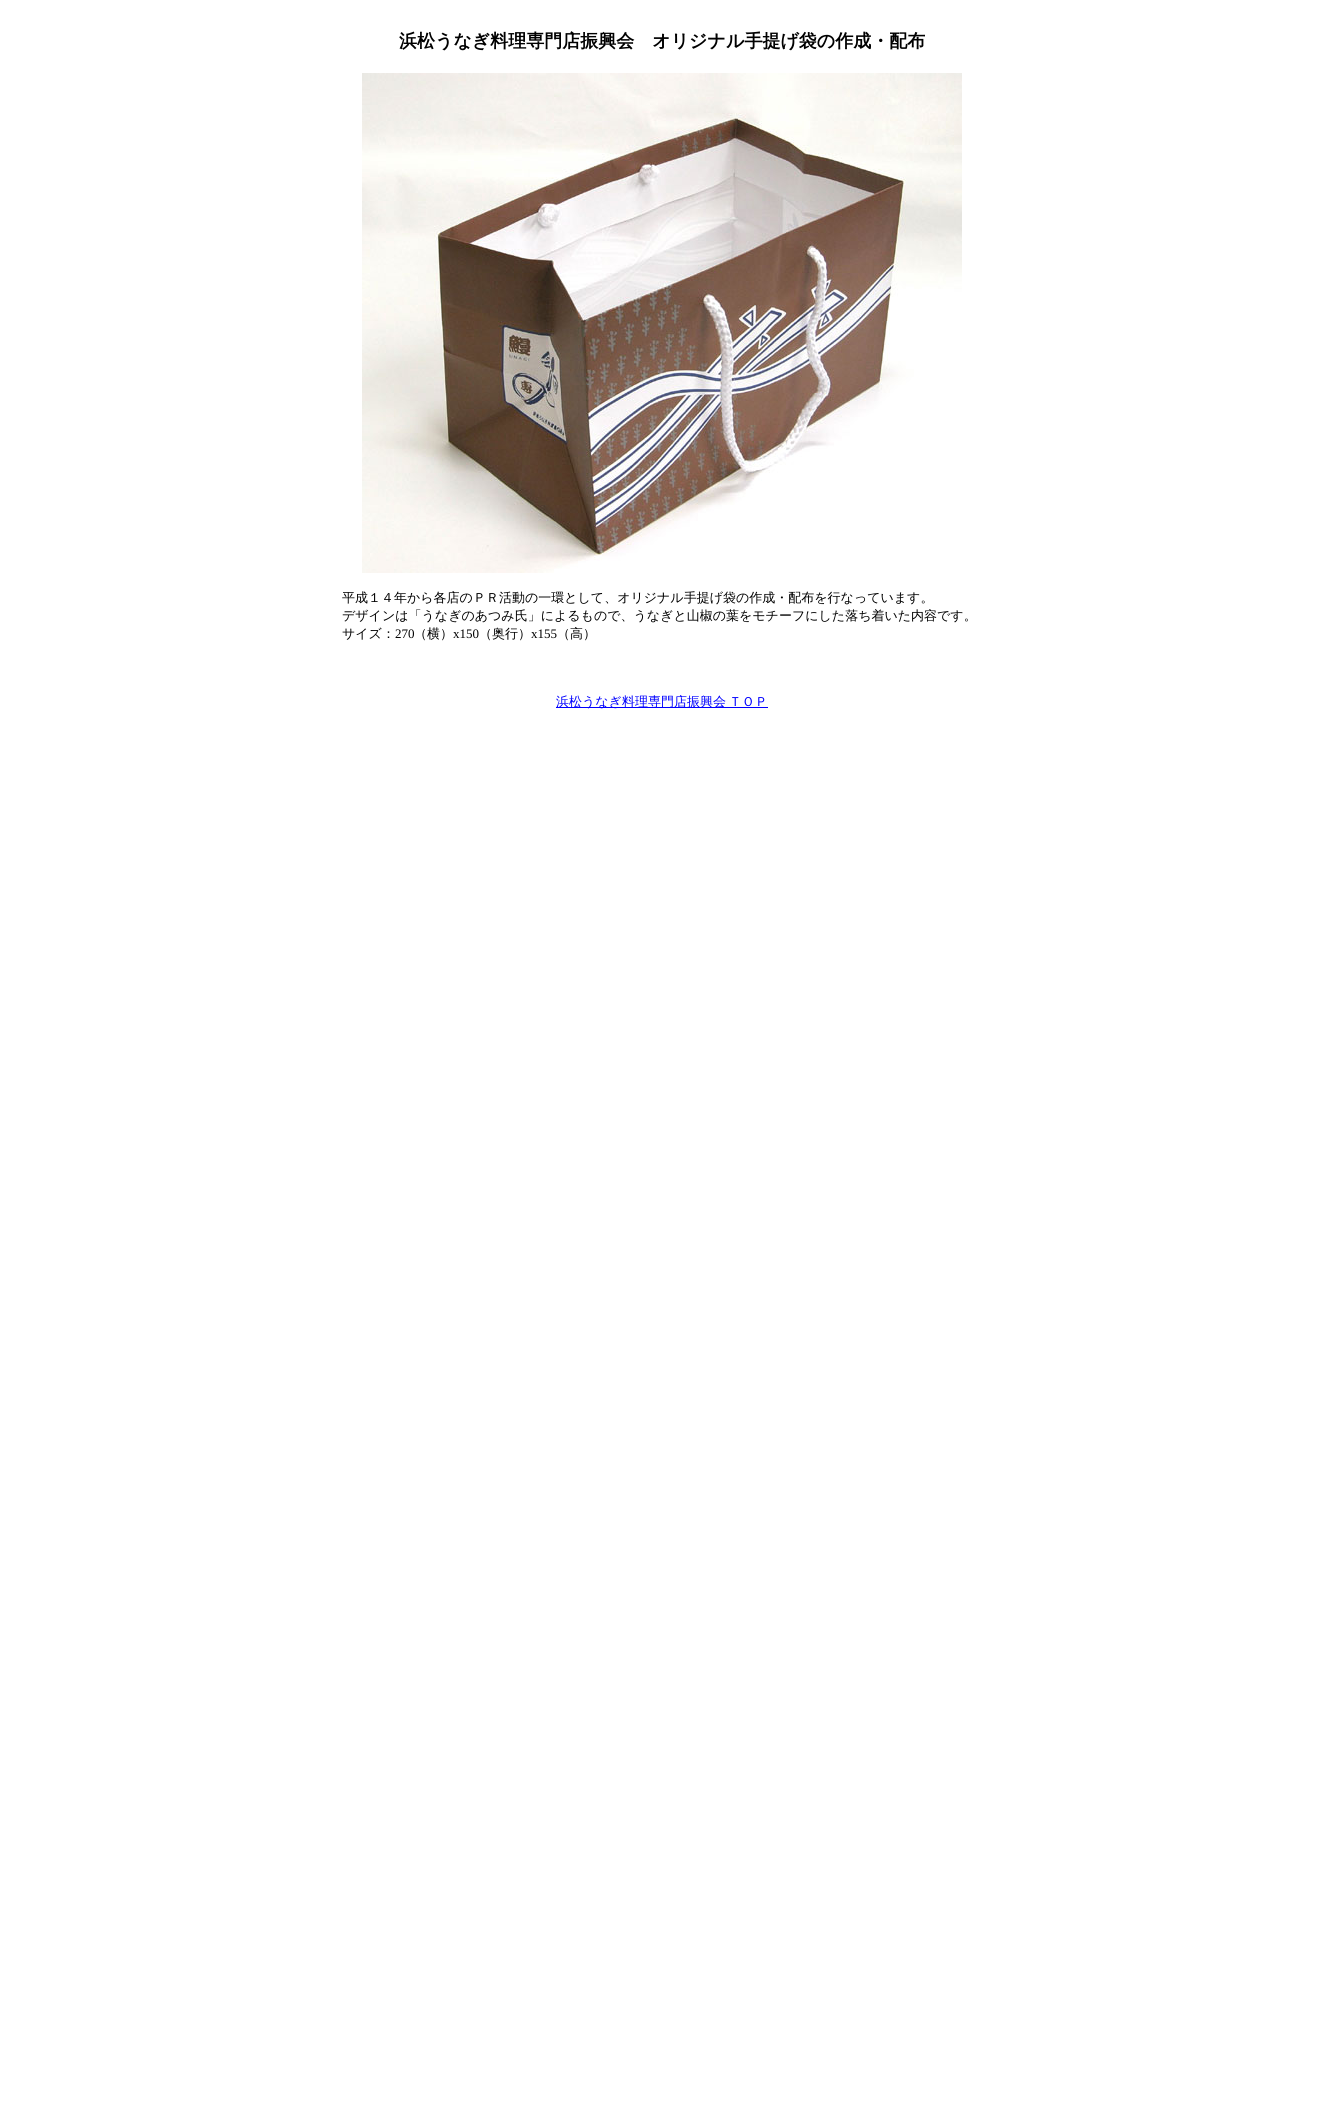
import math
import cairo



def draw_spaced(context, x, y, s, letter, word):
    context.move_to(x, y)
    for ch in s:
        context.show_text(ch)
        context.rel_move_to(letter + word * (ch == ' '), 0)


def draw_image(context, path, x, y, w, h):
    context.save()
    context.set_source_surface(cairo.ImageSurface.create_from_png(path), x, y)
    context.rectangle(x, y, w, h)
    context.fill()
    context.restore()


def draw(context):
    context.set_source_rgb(1, 1, 1)
    context.paint()
    draw_image(context, "images/1.png", 362, 73, 600, 500)
    context.set_source_rgb(0, 0, 1)
    context.rectangle(556, 707, 212, 1)
    context.fill()
    context.select_font_face("WenQuanYi Zen Hei", cairo.FontSlant.NORMAL, cairo.FontWeight.BOLD)
    context.set_font_size(18)
    context.set_source_rgb(0, 0, 0)
    context.move_to(399, 47)
    context.show_text("浜松うなぎ料理専門店振興会　オリジナル手提げ袋の作成・配布")
    context.select_font_face("WenQuanYi Zen Hei Medium")
    context.set_font_size(13)
    context.move_to(342, 602)
    context.show_text("平成１４年から各店のＰＲ活動の一環として、オリジナル手提げ袋の作成・配布を行なっています。")
    context.move_to(342, 620)
    context.show_text("デザインは「うなぎのあつみ氏」によるもので、うなぎと山椒の葉をモチーフにした落ち着いた内容です。")
    context.move_to(342, 638)
    context.show_text("サイズ：")
    context.select_font_face("Liberation Serif")
    context.move_to(395, 638)
    context.show_text("270")
    context.select_font_face("WenQuanYi Zen Hei Medium")
    context.move_to(414, 638)
    context.show_text("（横）")
    context.select_font_face("Liberation Serif")
    context.move_to(453, 638)
    context.show_text("x150")
    context.select_font_face("WenQuanYi Zen Hei Medium")
    context.move_to(479, 638)
    context.show_text("（奥行）")
    context.select_font_face("Liberation Serif")
    context.move_to(531, 638)
    context.show_text("x155")
    context.select_font_face("WenQuanYi Zen Hei Medium")
    context.move_to(557, 638)
    context.show_text("（高）")
    context.set_source_rgb(0, 0, 1)
    draw_spaced(context, 556, 706, "浜松うなぎ料理専門店振興会 ＴＯＰ", 0, -1)


surface = cairo.ImageSurface(cairo.Format.RGB24, 1324, 2119)
context = cairo.Context(surface)
options = cairo.FontOptions()
options.set_hint_metrics(cairo.HintMetrics.OFF)
options.set_hint_style(cairo.HintStyle.NONE)
context.set_font_options(options)
context.set_miter_limit(4)
draw(context)
surface.write_to_png("out.png")
